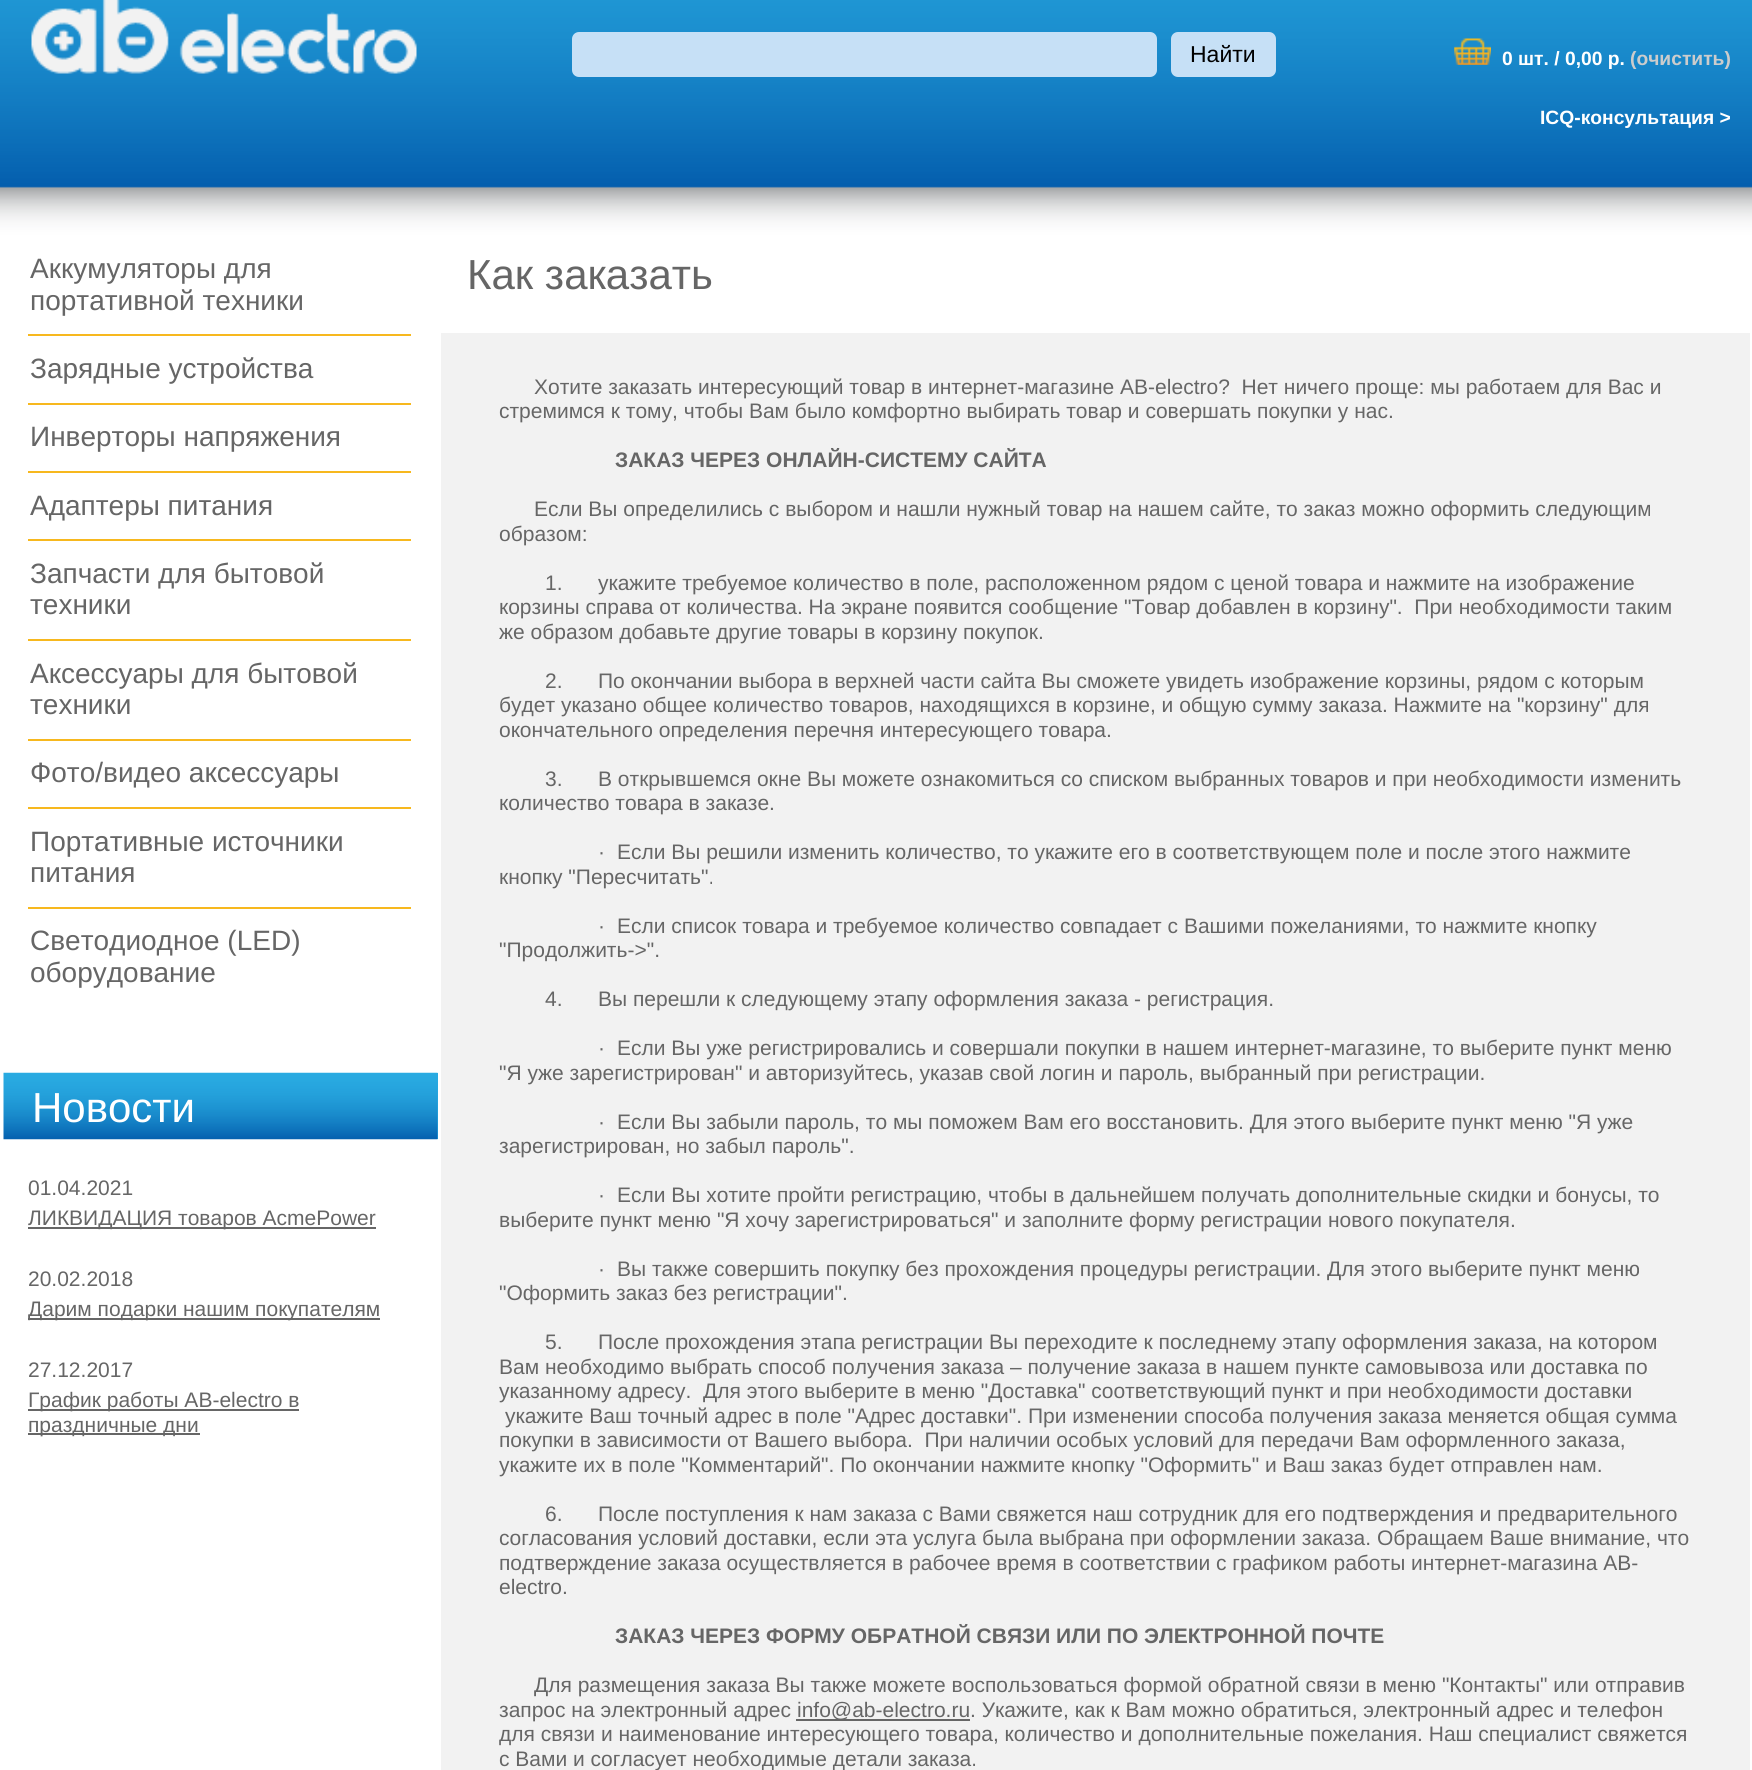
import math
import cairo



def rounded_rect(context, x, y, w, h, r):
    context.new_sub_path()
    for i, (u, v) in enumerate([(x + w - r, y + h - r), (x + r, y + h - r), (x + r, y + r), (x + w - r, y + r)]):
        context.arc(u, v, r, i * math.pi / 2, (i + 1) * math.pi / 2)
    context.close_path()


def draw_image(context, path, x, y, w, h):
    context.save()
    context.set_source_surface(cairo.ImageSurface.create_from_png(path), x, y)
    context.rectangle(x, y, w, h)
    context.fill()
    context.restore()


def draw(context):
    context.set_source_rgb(1, 1, 1)
    context.paint()
    draw_image(context, "images/1.png", 0, 0, 1752, 236)
    draw_image(context, "images/2.png", 31, 0, 386, 74)
    context.set_source_rgb(198 / 255, 224 / 255, 246 / 255)
    rounded_rect(context, 572, 32, 585, 45, 7)
    context.fill()
    rounded_rect(context, 1171, 32, 105, 45, 7)
    context.fill()
    draw_image(context, "images/3.png", 1454, 38, 37, 27)
    context.set_source_rgb(247 / 255, 184 / 255, 30 / 255)
    context.rectangle(28, 334, 383, 2)
    context.fill()
    context.rectangle(28, 403, 383, 2)
    context.fill()
    context.rectangle(28, 471, 383, 2)
    context.fill()
    context.rectangle(28, 539, 383, 2)
    context.fill()
    context.rectangle(28, 639, 383, 2)
    context.fill()
    context.rectangle(28, 739, 383, 2)
    context.fill()
    context.rectangle(28, 807, 383, 2)
    context.fill()
    context.rectangle(28, 907, 383, 2)
    context.fill()
    context.set_source_rgb(40 / 255, 168 / 255, 224 / 255)
    context.rectangle(437, 1073, 1, 66)
    context.fill()
    draw_image(context, "images/4.png", 3, 1072, 435, 68)
    context.set_source_rgb(102 / 255, 102 / 255, 102 / 255)
    context.rectangle(28, 1227, 348, 2)
    context.fill()
    context.rectangle(28, 1318, 352, 2)
    context.fill()
    context.rectangle(28, 1409, 271, 2)
    context.fill()
    context.rectangle(28, 1433, 172, 2)
    context.fill()
    context.set_source_rgb(242 / 255, 242 / 255, 242 / 255)
    context.rectangle(441, 333, 1309, 1437)
    context.fill()
    context.set_source_rgb(102 / 255, 102 / 255, 102 / 255)
    context.rectangle(796, 1719, 174, 2)
    context.fill()
    context.select_font_face("Liberation Sans")
    context.set_font_size(23)
    context.set_source_rgb(0, 0, 0)
    context.move_to(1190, 62)
    context.show_text("Найти")
    context.select_font_face("Liberation Sans", cairo.FontSlant.NORMAL, cairo.FontWeight.BOLD)
    context.set_font_size(19.25)
    context.set_source_rgb(1, 1, 1)
    context.move_to(1502, 65)
    context.show_text("0 шт. / 0,00 р.")
    context.set_source_rgb(204 / 255, 204 / 255, 204 / 255)
    context.move_to(1630, 65)
    context.show_text("(очистить)")
    context.set_source_rgb(1, 1, 1)
    context.move_to(1540, 124)
    context.show_text("ICQ-консультация >")
    context.select_font_face("Liberation Sans")
    context.set_font_size(28)
    context.set_source_rgb(102 / 255, 102 / 255, 102 / 255)
    context.move_to(30, 278)
    context.show_text("Аккумуляторы для")
    context.move_to(30, 310)
    context.show_text("портативной техники")
    context.move_to(30, 378)
    context.show_text("Зарядные устройства")
    context.move_to(30, 446)
    context.show_text("Инверторы напряжения")
    context.move_to(30, 515)
    context.show_text("Адаптеры питания")
    context.move_to(30, 583)
    context.show_text("Запчасти для бытовой")
    context.move_to(30, 614)
    context.show_text("техники")
    context.move_to(30, 683)
    context.show_text("Аксессуары для бытовой")
    context.move_to(30, 714)
    context.show_text("техники")
    context.move_to(30, 782)
    context.show_text("Фото/видео аксессуары")
    context.move_to(30, 851)
    context.show_text("Портативные источники")
    context.move_to(30, 882)
    context.show_text("питания")
    context.move_to(30, 950)
    context.show_text("Светодиодное (LED)")
    context.move_to(30, 982)
    context.show_text("оборудование")
    context.set_font_size(42)
    context.set_source_rgb(1, 1, 1)
    context.move_to(32, 1122)
    context.show_text("Новости")
    context.set_font_size(21)
    context.set_source_rgb(102 / 255, 102 / 255, 102 / 255)
    context.move_to(28, 1195)
    context.show_text("01.04.2021")
    context.move_to(28, 1225)
    context.show_text("ЛИКВИДАЦИЯ товаров AcmePower")
    context.move_to(28, 1286)
    context.show_text("20.02.2018")
    context.move_to(28, 1316)
    context.show_text("Дарим подарки нашим покупателям")
    context.move_to(28, 1377)
    context.show_text("27.12.2017")
    context.move_to(28, 1407)
    context.show_text("График работы AB-electro в")
    context.move_to(28, 1432)
    context.show_text("праздничные дни")
    context.set_font_size(42)
    context.move_to(467, 289)
    context.show_text("Как заказать")
    context.set_font_size(21)
    context.move_to(534, 394)
    context.show_text("Хотите заказать интересующий товар в интернет-магазине AB-electro?  Нет ничего проще: мы работаем для Вас и")
    context.move_to(499, 418)
    context.show_text("стремимся к тому, чтобы Вам было комфортно выбирать товар и совершать покупки у нас.")
    context.select_font_face("Liberation Sans", cairo.FontSlant.NORMAL, cairo.FontWeight.BOLD)
    context.move_to(615, 467)
    context.show_text("ЗАКАЗ ЧЕРЕЗ ОНЛАЙН-СИСТЕМУ САЙТА")
    context.select_font_face("Liberation Sans")
    context.move_to(534, 516)
    context.show_text("Если Вы определились с выбором и нашли нужный товар на нашем сайте, то заказ можно оформить следующим")
    context.move_to(499, 541)
    context.show_text("образом:")
    context.move_to(545, 590)
    context.show_text("1.")
    context.move_to(598, 590)
    context.show_text("укажите требуемое количество в поле, расположенном рядом с ценой товара и нажмите на изображение")
    context.move_to(499, 614)
    context.show_text("корзины справа от количества. На экране появится сообщение \"Товар добавлен в корзину\".  При необходимости таким")
    context.move_to(499, 639)
    context.show_text("же образом добавьте другие товары в корзину покупок.")
    context.move_to(545, 688)
    context.show_text("2.")
    context.move_to(598, 688)
    context.show_text("По окончании выбора в верхней части сайта Вы сможете увидеть изображение корзины, рядом с которым")
    context.move_to(499, 712)
    context.show_text("будет указано общее количество товаров, находящихся в корзине, и общую сумму заказа. Нажмите на \"корзину\" для")
    context.move_to(499, 737)
    context.show_text("окончательного определения перечня интересующего товара.")
    context.move_to(545, 786)
    context.show_text("3.")
    context.move_to(598, 786)
    context.show_text("В открывшемся окне Вы можете ознакомиться со списком выбранных товаров и при необходимости изменить")
    context.move_to(499, 810)
    context.show_text("количество товара в заказе.")
    context.move_to(598, 859)
    context.show_text("·")
    context.move_to(617, 859)
    context.show_text("Если Вы решили изменить количество, то укажите его в соответствующем поле и после этого нажмите")
    context.move_to(499, 884)
    context.show_text("кнопку \"Пересчитать\".")
    context.move_to(598, 933)
    context.show_text("·")
    context.move_to(617, 933)
    context.show_text("Если список товара и требуемое количество совпадает с Вашими пожеланиями, то нажмите кнопку")
    context.move_to(499, 957)
    context.show_text("\"Продолжить->\".")
    context.move_to(545, 1006)
    context.show_text("4.")
    context.move_to(598, 1006)
    context.show_text("Вы перешли к следующему этапу оформления заказа - регистрация.")
    context.move_to(598, 1055)
    context.show_text("·")
    context.move_to(617, 1055)
    context.show_text("Если Вы уже регистрировались и совершали покупки в нашем интернет-магазине, то выберите пункт меню")
    context.move_to(499, 1080)
    context.show_text("\"Я уже зарегистрирован\" и авторизуйтесь, указав свой логин и пароль, выбранный при регистрации.")
    context.move_to(598, 1129)
    context.show_text("·")
    context.move_to(617, 1129)
    context.show_text("Если Вы забыли пароль, то мы поможем Вам его восстановить. Для этого выберите пункт меню \"Я уже")
    context.move_to(499, 1153)
    context.show_text("зарегистрирован, но забыл пароль\".")
    context.move_to(598, 1202)
    context.show_text("·")
    context.move_to(617, 1202)
    context.show_text("Если Вы хотите пройти регистрацию, чтобы в дальнейшем получать дополнительные скидки и бонусы, то")
    context.move_to(499, 1227)
    context.show_text("выберите пункт меню \"Я хочу зарегистрироваться\" и заполните форму регистрации нового покупателя.")
    context.move_to(598, 1276)
    context.show_text("·")
    context.move_to(617, 1276)
    context.show_text("Вы также совершить покупку без прохождения процедуры регистрации. Для этого выберите пункт меню")
    context.move_to(499, 1300)
    context.show_text("\"Оформить заказ без регистрации\".")
    context.move_to(545, 1349)
    context.show_text("5.")
    context.move_to(598, 1349)
    context.show_text("После прохождения этапа регистрации Вы переходите к последнему этапу оформления заказа, на котором")
    context.move_to(499, 1374)
    context.show_text("Вам необходимо выбрать способ получения заказа – получение заказа в нашем пункте самовывоза или доставка по")
    context.move_to(499, 1398)
    context.show_text("указанному адресу.  Для этого выберите в меню \"Доставка\" соответствующий пункт и при необходимости доставки")
    context.move_to(505, 1423)
    context.show_text("укажите Ваш точный адрес в поле \"Адрес доставки\". При изменении способа получения заказа меняется общая сумма")
    context.move_to(499, 1447)
    context.show_text("покупки в зависимости от Вашего выбора.  При наличии особых условий для передачи Вам оформленного заказа,")
    context.move_to(499, 1472)
    context.show_text("укажите их в поле \"Комментарий\". По окончании нажмите кнопку \"Оформить\" и Ваш заказ будет отправлен нам.")
    context.move_to(545, 1521)
    context.show_text("6.")
    context.move_to(598, 1521)
    context.show_text("После поступления к нам заказа с Вами свяжется наш сотрудник для его подтверждения и предварительного")
    context.move_to(499, 1545)
    context.show_text("согласования условий доставки, если эта услуга была выбрана при оформлении заказа. Обращаем Ваше внимание, что")
    context.move_to(499, 1570)
    context.show_text("подтверждение заказа осуществляется в рабочее время в соответствии с графиком работы интернет-магазина AB-")
    context.move_to(499, 1594)
    context.show_text("electro.")
    context.select_font_face("Liberation Sans", cairo.FontSlant.NORMAL, cairo.FontWeight.BOLD)
    context.move_to(615, 1643)
    context.show_text("ЗАКАЗ ЧЕРЕЗ ФОРМУ ОБРАТНОЙ СВЯЗИ ИЛИ ПО ЭЛЕКТРОННОЙ ПОЧТЕ")
    context.select_font_face("Liberation Sans")
    context.move_to(534, 1692)
    context.show_text("Для размещения заказа Вы также можете воспользоваться формой обратной связи в меню \"Контакты\" или отправив")
    context.move_to(499, 1717)
    context.show_text("запрос на электронный адрес")
    context.move_to(797, 1717)
    context.show_text("info@ab-electro.ru. Укажите, как к Вам можно обратиться, электронный адрес и телефон")
    context.move_to(499, 1741)
    context.show_text("для связи и наименование интересующего товара, количество и дополнительные пожелания. Наш специалист свяжется")
    context.move_to(499, 1766)
    context.show_text("с Вами и согласует необходимые детали заказа.")


surface = cairo.ImageSurface(cairo.Format.RGB24, 1752, 1770)
context = cairo.Context(surface)
options = cairo.FontOptions()
options.set_hint_metrics(cairo.HintMetrics.OFF)
options.set_hint_style(cairo.HintStyle.NONE)
context.set_font_options(options)
context.set_miter_limit(4)
draw(context)
surface.write_to_png("out.png")
